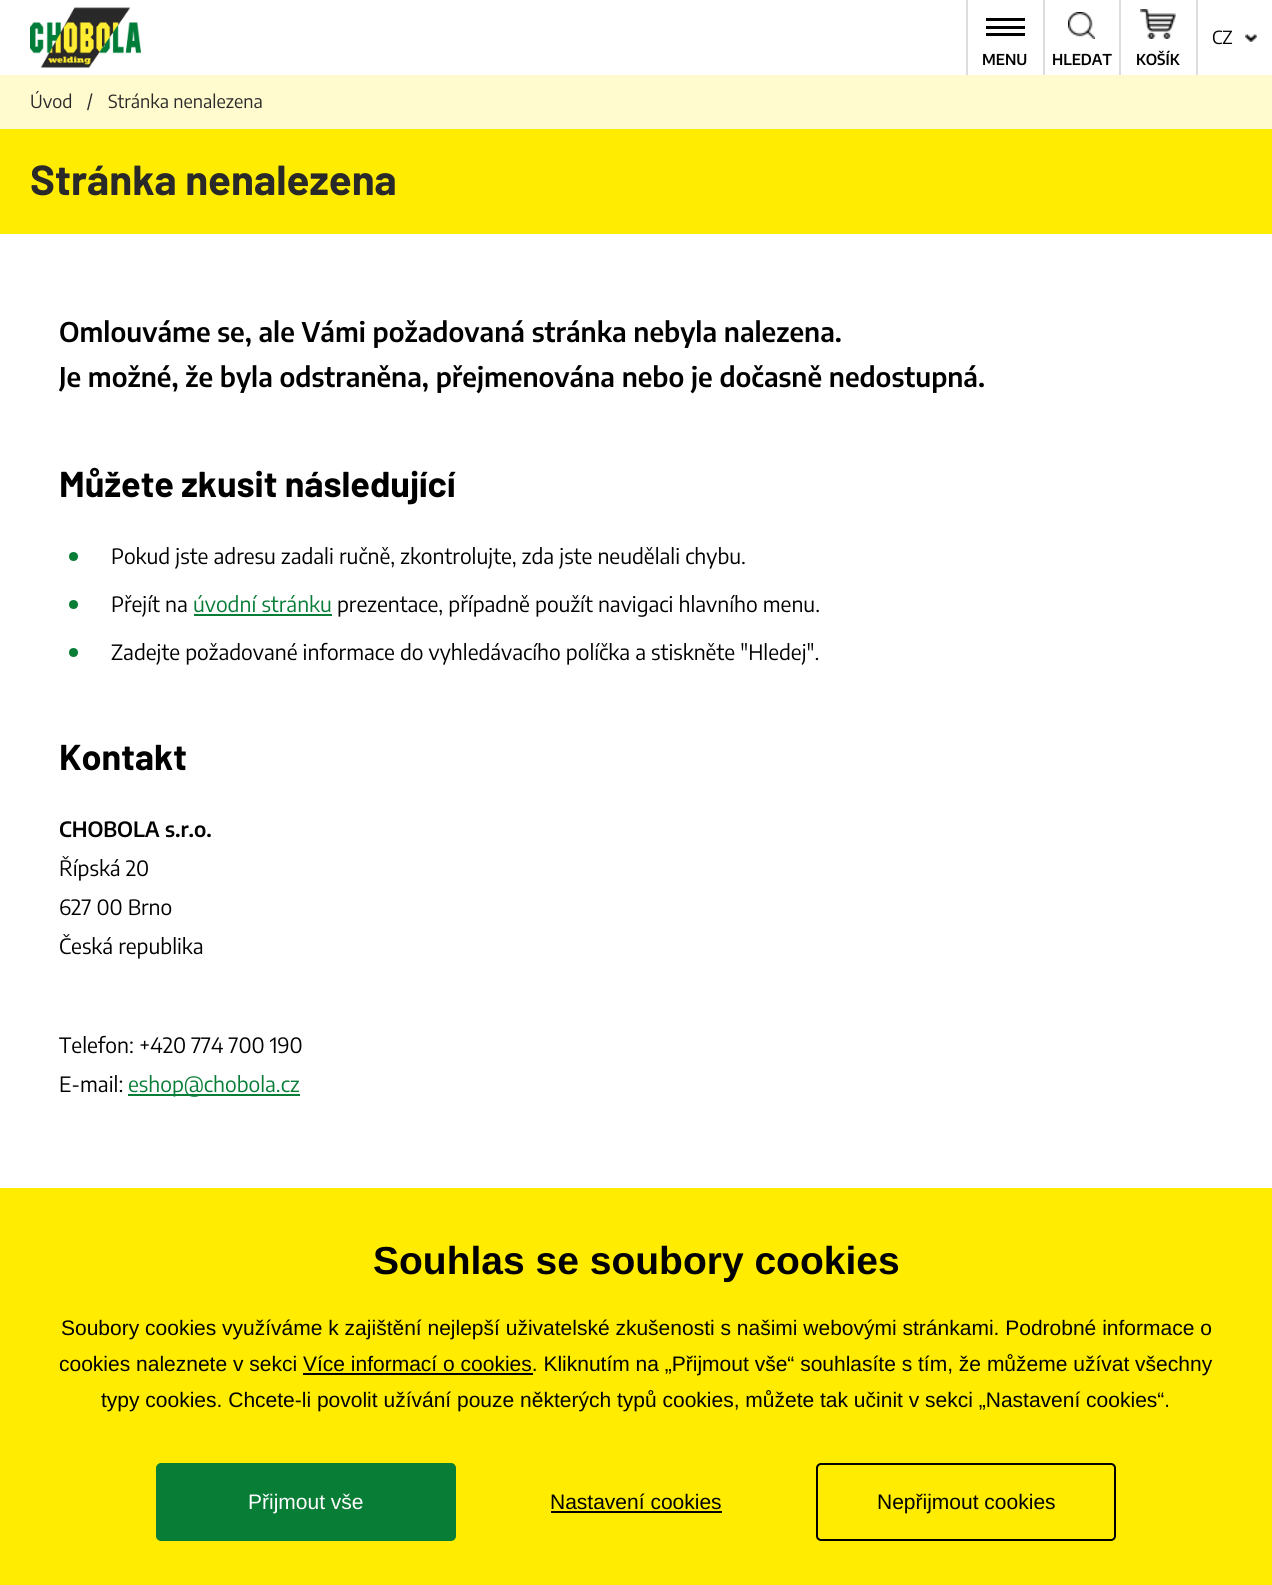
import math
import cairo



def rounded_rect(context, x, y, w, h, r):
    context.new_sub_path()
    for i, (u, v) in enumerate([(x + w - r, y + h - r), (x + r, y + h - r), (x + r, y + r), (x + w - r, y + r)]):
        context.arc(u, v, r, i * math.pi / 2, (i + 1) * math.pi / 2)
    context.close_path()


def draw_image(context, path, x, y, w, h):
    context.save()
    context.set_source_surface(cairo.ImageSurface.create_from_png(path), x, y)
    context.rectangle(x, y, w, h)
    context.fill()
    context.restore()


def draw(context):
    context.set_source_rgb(1, 1, 1)
    context.paint()
    draw_image(context, "images/1.png", 30, 7, 111, 61)
    context.set_source_rgb(220 / 255, 221 / 255, 223 / 255)
    context.rectangle(1196, 0, 2, 75)
    context.fill()
    draw_image(context, "images/2.png", 1245, 34, 12, 8)
    context.rectangle(966, 0, 2, 75)
    context.fill()
    context.set_source_rgb(0, 0, 0)
    context.rectangle(986, 18, 39, 3)
    context.fill()
    context.rectangle(986, 26, 39, 3)
    context.fill()
    context.rectangle(986, 33, 39, 3)
    context.fill()
    context.set_source_rgb(220 / 255, 221 / 255, 223 / 255)
    context.rectangle(1043, 0, 2, 75)
    context.fill()
    draw_image(context, "images/3.png", 1068, 12, 27, 27)
    context.rectangle(1119, 0, 2, 75)
    context.fill()
    draw_image(context, "images/4.png", 1140, 9, 36, 30)
    context.set_source_rgb(1, 251 / 255, 206 / 255)
    context.rectangle(0, 75, 1272, 54)
    context.fill()
    context.set_source_rgb(1, 236 / 255, 0)
    context.rectangle(0, 129, 1272, 105)
    context.fill()
    context.set_source_rgb(7 / 255, 125 / 255, 54 / 255)
    context.arc(73.5, 556.5, 4.5, 0, 2 * math.pi)
    context.fill()
    context.arc(73.5, 604.5, 4.5, 0, 2 * math.pi)
    context.fill()
    context.rectangle(194, 614, 138, 2)
    context.fill()
    context.arc(73.5, 652.5, 4.5, 0, 2 * math.pi)
    context.fill()
    context.rectangle(128, 1094, 172, 2)
    context.fill()
    context.set_source_rgb(1, 236 / 255, 0)
    context.rectangle(0, 1188, 1272, 397)
    context.fill()
    context.set_source_rgb(0, 0, 0)
    context.rectangle(303, 1373, 230, 2)
    context.fill()
    context.set_source_rgb(7 / 255, 125 / 255, 54 / 255)
    rounded_rect(context, 157, 1464, 298, 76, 4)
    context.fill_preserve()
    context.stroke()
    context.set_source_rgb(0, 0, 0)
    context.rectangle(551, 1511, 171, 2)
    context.fill()
    rounded_rect(context, 817, 1464, 298, 76, 4)
    context.stroke()
    context.select_font_face("Encode Sans Condensed")
    context.set_font_size(18)
    context.move_to(1212, 44)
    context.show_text("CZ")
    context.select_font_face("Encode Sans Condensed SemiBold")
    context.set_font_size(15)
    context.move_to(982, 65)
    context.show_text("MENU")
    context.move_to(1052, 65)
    context.show_text("HLEDAT")
    context.move_to(1136, 65)
    context.show_text("KOŠÍK")
    context.select_font_face("Encode Sans Condensed")
    context.set_font_size(18)
    context.set_source_rgb(42 / 255, 41 / 255, 41 / 255)
    context.move_to(30, 108)
    context.show_text("Úvod")
    context.move_to(87, 108)
    context.show_text("/")
    context.move_to(108, 108)
    context.show_text("Stránka nenalezena")
    context.select_font_face("Barlow", cairo.FontSlant.NORMAL, cairo.FontWeight.BOLD)
    context.set_font_size(42)
    context.move_to(30, 195)
    context.show_text("Stránka nenalezena")
    context.select_font_face("Encode Sans Condensed SemiBold")
    context.set_font_size(27)
    context.set_source_rgb(0, 0, 0)
    context.move_to(59, 342)
    context.show_text("Omlouváme se, ale Vámi požadovaná stránka nebyla nalezena.")
    context.move_to(59, 387)
    context.show_text("Je možné, že byla odstraněna, přejmenována nebo je dočasně nedostupná.")
    context.select_font_face("Barlow", cairo.FontSlant.NORMAL, cairo.FontWeight.BOLD)
    context.set_font_size(36)
    context.move_to(59, 497)
    context.show_text("Můžete zkusit následující")
    context.select_font_face("Encode Sans Condensed")
    context.set_font_size(21)
    context.move_to(111, 564)
    context.show_text("Pokud jste adresu zadali ručně, zkontrolujte, zda jste neudělali chybu.")
    context.move_to(111, 612)
    context.show_text("Přejít na")
    context.set_source_rgb(7 / 255, 125 / 255, 54 / 255)
    context.move_to(193, 612)
    context.show_text("úvodní stránku")
    context.set_source_rgb(0, 0, 0)
    context.move_to(337, 612)
    context.show_text("prezentace, případně použít navigaci hlavního menu.")
    context.move_to(111, 660)
    context.show_text("Zadejte požadované informace do vyhledávacího políčka a stiskněte \"Hledej\".")
    context.select_font_face("Barlow", cairo.FontSlant.NORMAL, cairo.FontWeight.BOLD)
    context.set_font_size(36)
    context.move_to(59, 770)
    context.show_text("Kontakt")
    context.select_font_face("Encode Sans Condensed SemiBold")
    context.set_font_size(21)
    context.move_to(59, 837)
    context.show_text("CHOBOLA s.r.o.")
    context.select_font_face("Encode Sans Condensed")
    context.move_to(59, 876)
    context.show_text("Řípská 20")
    context.move_to(59, 915)
    context.show_text("627 00 Brno")
    context.move_to(59, 954)
    context.show_text("Česká republika")
    context.move_to(59, 1053)
    context.show_text("Telefon: +420 774 700 190")
    context.move_to(59, 1092)
    context.show_text("E-mail:")
    context.set_source_rgb(7 / 255, 125 / 255, 54 / 255)
    context.move_to(128, 1092)
    context.show_text("eshop@chobola.cz")
    context.select_font_face("Liberation Sans", cairo.FontSlant.NORMAL, cairo.FontWeight.BOLD)
    context.set_font_size(39)
    context.set_source_rgb(0, 0, 0)
    context.move_to(373, 1274)
    context.show_text("Souhlas se soubory cookies")
    context.select_font_face("Liberation Sans")
    context.set_font_size(21)
    context.move_to(61, 1335)
    context.show_text("Soubory cookies využíváme k zajištění nejlepší uživatelské zkušenosti s našimi webovými stránkami. Podrobné informace o")
    context.move_to(59, 1371)
    context.show_text("cookies naleznete v sekci Více informací o cookies. Kliknutím na „Přijmout vše“ souhlasíte s tím, že můžeme užívat všechny")
    context.move_to(101, 1407)
    context.show_text("typy cookies. Chcete-li povolit užívání pouze některých typů cookies, můžete tak učinit v sekci „Nastavení cookies“.")
    context.set_source_rgb(1, 1, 1)
    context.move_to(248, 1509)
    context.show_text("Přijmout vše")
    context.set_source_rgb(0, 0, 0)
    context.move_to(550, 1509)
    context.show_text("Nastavení cookies")
    context.move_to(877, 1509)
    context.show_text("Nepřijmout cookies")


surface = cairo.ImageSurface(cairo.Format.RGB24, 1272, 1585)
context = cairo.Context(surface)
options = cairo.FontOptions()
options.set_hint_metrics(cairo.HintMetrics.OFF)
options.set_hint_style(cairo.HintStyle.NONE)
context.set_font_options(options)
context.set_miter_limit(4)
draw(context)
surface.write_to_png("out.png")
